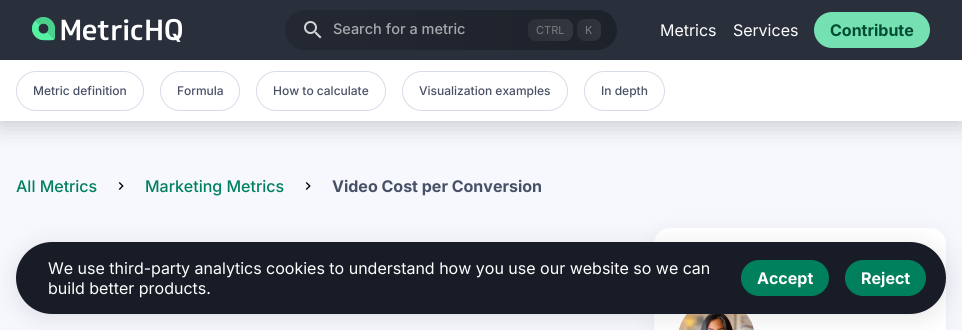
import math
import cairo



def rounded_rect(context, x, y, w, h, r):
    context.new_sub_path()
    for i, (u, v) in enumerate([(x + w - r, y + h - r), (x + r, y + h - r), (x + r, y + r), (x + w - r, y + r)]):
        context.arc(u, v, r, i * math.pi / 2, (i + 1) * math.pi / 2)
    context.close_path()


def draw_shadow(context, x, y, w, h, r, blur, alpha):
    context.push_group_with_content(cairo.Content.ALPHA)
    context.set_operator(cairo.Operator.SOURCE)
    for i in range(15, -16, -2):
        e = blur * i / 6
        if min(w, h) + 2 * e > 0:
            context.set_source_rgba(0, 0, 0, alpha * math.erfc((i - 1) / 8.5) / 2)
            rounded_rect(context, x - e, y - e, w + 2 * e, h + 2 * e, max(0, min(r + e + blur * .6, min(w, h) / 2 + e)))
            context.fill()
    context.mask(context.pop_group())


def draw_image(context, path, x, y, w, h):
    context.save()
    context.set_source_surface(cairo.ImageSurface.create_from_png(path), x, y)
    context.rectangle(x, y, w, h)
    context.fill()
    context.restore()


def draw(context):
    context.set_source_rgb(246 / 255, 248 / 255, 254 / 255)
    context.paint()
    context.set_source_rgb(0, 0, 0)
    draw_shadow(context, 0, 64, 962, 61, 0, 12, 0.2)
    context.set_source_rgb(42 / 255, 47 / 255, 60 / 255)
    context.rectangle(0, 0, 962, 60)
    context.fill()
    draw_image(context, "images/1.png", 32, 17, 150, 25)
    gradient = cairo.LinearGradient(285, 30, 725, 30)
    gradient.add_color_stop_rgba(0.03, 36 / 255, 40 / 255, 51 / 255, 1)
    gradient.add_color_stop_rgba(1, 27 / 255, 31 / 255, 39 / 255, 1)
    context.set_source(gradient)
    rounded_rect(context, 285, 10, 332, 40, 20)
    context.fill()
    draw_image(context, "images/2.png", 304, 21, 18, 18)
    gradient = cairo.LinearGradient(527, 33, 641, 20)
    gradient.add_color_stop_rgba(0.06, 44 / 255, 48 / 255, 56 / 255, 1)
    gradient.add_color_stop_rgba(1, 62 / 255, 66 / 255, 73 / 255, 1)
    context.set_source(gradient)
    rounded_rect(context, 528, 19, 45, 22, 8)
    context.fill()
    gradient = cairo.LinearGradient(576, 32, 640, 24)
    gradient.add_color_stop_rgba(0.06, 44 / 255, 47 / 255, 56 / 255, 1)
    gradient.add_color_stop_rgba(1, 62 / 255, 65 / 255, 73 / 255, 1)
    context.set_source(gradient)
    rounded_rect(context, 577, 19, 24, 22, 8)
    context.fill()
    context.set_source_rgb(117 / 255, 225 / 255, 178 / 255)
    rounded_rect(context, 814, 12, 116, 36, 18)
    context.fill()
    context.set_source_rgb(1, 1, 1)
    context.rectangle(0, 60, 962, 61)
    context.fill()
    rounded_rect(context, 16.5, 71.5, 127, 39, 19.5)
    context.set_source_rgb(215 / 255, 220 / 255, 234 / 255)
    context.set_line_width(1)
    context.stroke()
    rounded_rect(context, 160.5, 71.5, 79, 39, 19.5)
    context.stroke()
    rounded_rect(context, 256.5, 71.5, 129, 39, 19.5)
    context.stroke()
    rounded_rect(context, 402.5, 71.5, 165, 39, 19.5)
    context.stroke()
    rounded_rect(context, 584.5, 71.5, 80, 39, 19.5)
    context.stroke()
    draw_image(context, "images/3.png", 118, 182, 6, 8)
    draw_image(context, "images/3.png", 305, 182, 6, 8)
    context.set_source_rgb(0, 0, 0)
    draw_shadow(context, 654, 232, 292, 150, 16, 12, 0.05)
    context.set_source_rgb(1, 1, 1)
    rounded_rect(context, 654, 228, 292, 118, 16)
    context.fill()
    context.set_source_rgb(215 / 255, 220 / 255, 234 / 255)
    rounded_rect(context, 678, 300, 77, 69, 38.5)
    context.fill()
    draw_image(context, "images/4.png", 679, 314, 75, 16)
    context.set_source_rgb(0, 0, 0)
    draw_shadow(context, 16, 246, 930, 72, 36, 12, 0.1)
    context.set_source_rgb(24 / 255, 28 / 255, 38 / 255)
    rounded_rect(context, 16, 242, 930, 72, 36)
    context.fill()
    context.set_source_rgb(0, 128 / 255, 93 / 255)
    rounded_rect(context, 741, 260, 88, 36, 18)
    context.fill()
    rounded_rect(context, 845, 260, 81, 36, 18)
    context.fill()
    context.select_font_face("Inter Medium")
    context.set_font_size(14.5)
    context.set_source_rgb(167 / 255, 168 / 255, 172 / 255)
    context.move_to(333, 34)
    context.show_text("Search for a metric")
    context.select_font_face("Inter")
    context.set_font_size(11)
    context.set_source_rgb(121 / 255, 123 / 255, 128 / 255)
    context.move_to(536, 34)
    context.show_text("CTRL")
    context.move_to(585, 34)
    context.show_text("K")
    context.set_font_size(16)
    context.set_source_rgb(1, 1, 1)
    context.move_to(660, 36)
    context.show_text("Metrics")
    context.move_to(733, 36)
    context.show_text("Services")
    context.select_font_face("Inter", cairo.FontSlant.NORMAL, cairo.FontWeight.BOLD)
    context.set_source_rgb(1 / 255, 76 / 255, 51 / 255)
    context.move_to(830, 36)
    context.show_text("Contribute")
    context.select_font_face("Inter Medium")
    context.set_font_size(12)
    context.set_source_rgb(72 / 255, 80 / 255, 102 / 255)
    context.move_to(33, 95)
    context.show_text("Metric definition")
    context.move_to(177, 95)
    context.show_text("Formula")
    context.move_to(273, 95)
    context.show_text("How to calculate")
    context.move_to(419, 95)
    context.show_text("Visualization examples")
    context.move_to(601, 95)
    context.show_text("In depth")
    context.set_font_size(16)
    context.set_source_rgb(0, 128 / 255, 93 / 255)
    context.move_to(16, 192)
    context.show_text("All Metrics")
    context.move_to(145, 192)
    context.show_text("Marketing Metrics")
    context.select_font_face("Inter", cairo.FontSlant.NORMAL, cairo.FontWeight.BOLD)
    context.set_source_rgb(72 / 255, 80 / 255, 102 / 255)
    context.move_to(332, 192)
    context.show_text("Video Cost per Conversion")
    context.select_font_face("Inter")
    context.set_source_rgb(1, 1, 1)
    context.move_to(48, 274)
    context.show_text("We use third-party analytics cookies to understand how you use our website so we can")
    context.move_to(48, 294)
    context.show_text("build better products.")
    context.select_font_face("Inter", cairo.FontSlant.NORMAL, cairo.FontWeight.BOLD)
    context.move_to(757, 284)
    context.show_text("Accept")
    context.move_to(861, 284)
    context.show_text("Reject")


surface = cairo.ImageSurface(cairo.Format.RGB24, 962, 330)
context = cairo.Context(surface)
options = cairo.FontOptions()
options.set_hint_metrics(cairo.HintMetrics.OFF)
options.set_hint_style(cairo.HintStyle.NONE)
context.set_font_options(options)
context.set_miter_limit(4)
draw(context)
surface.write_to_png("out.png")
